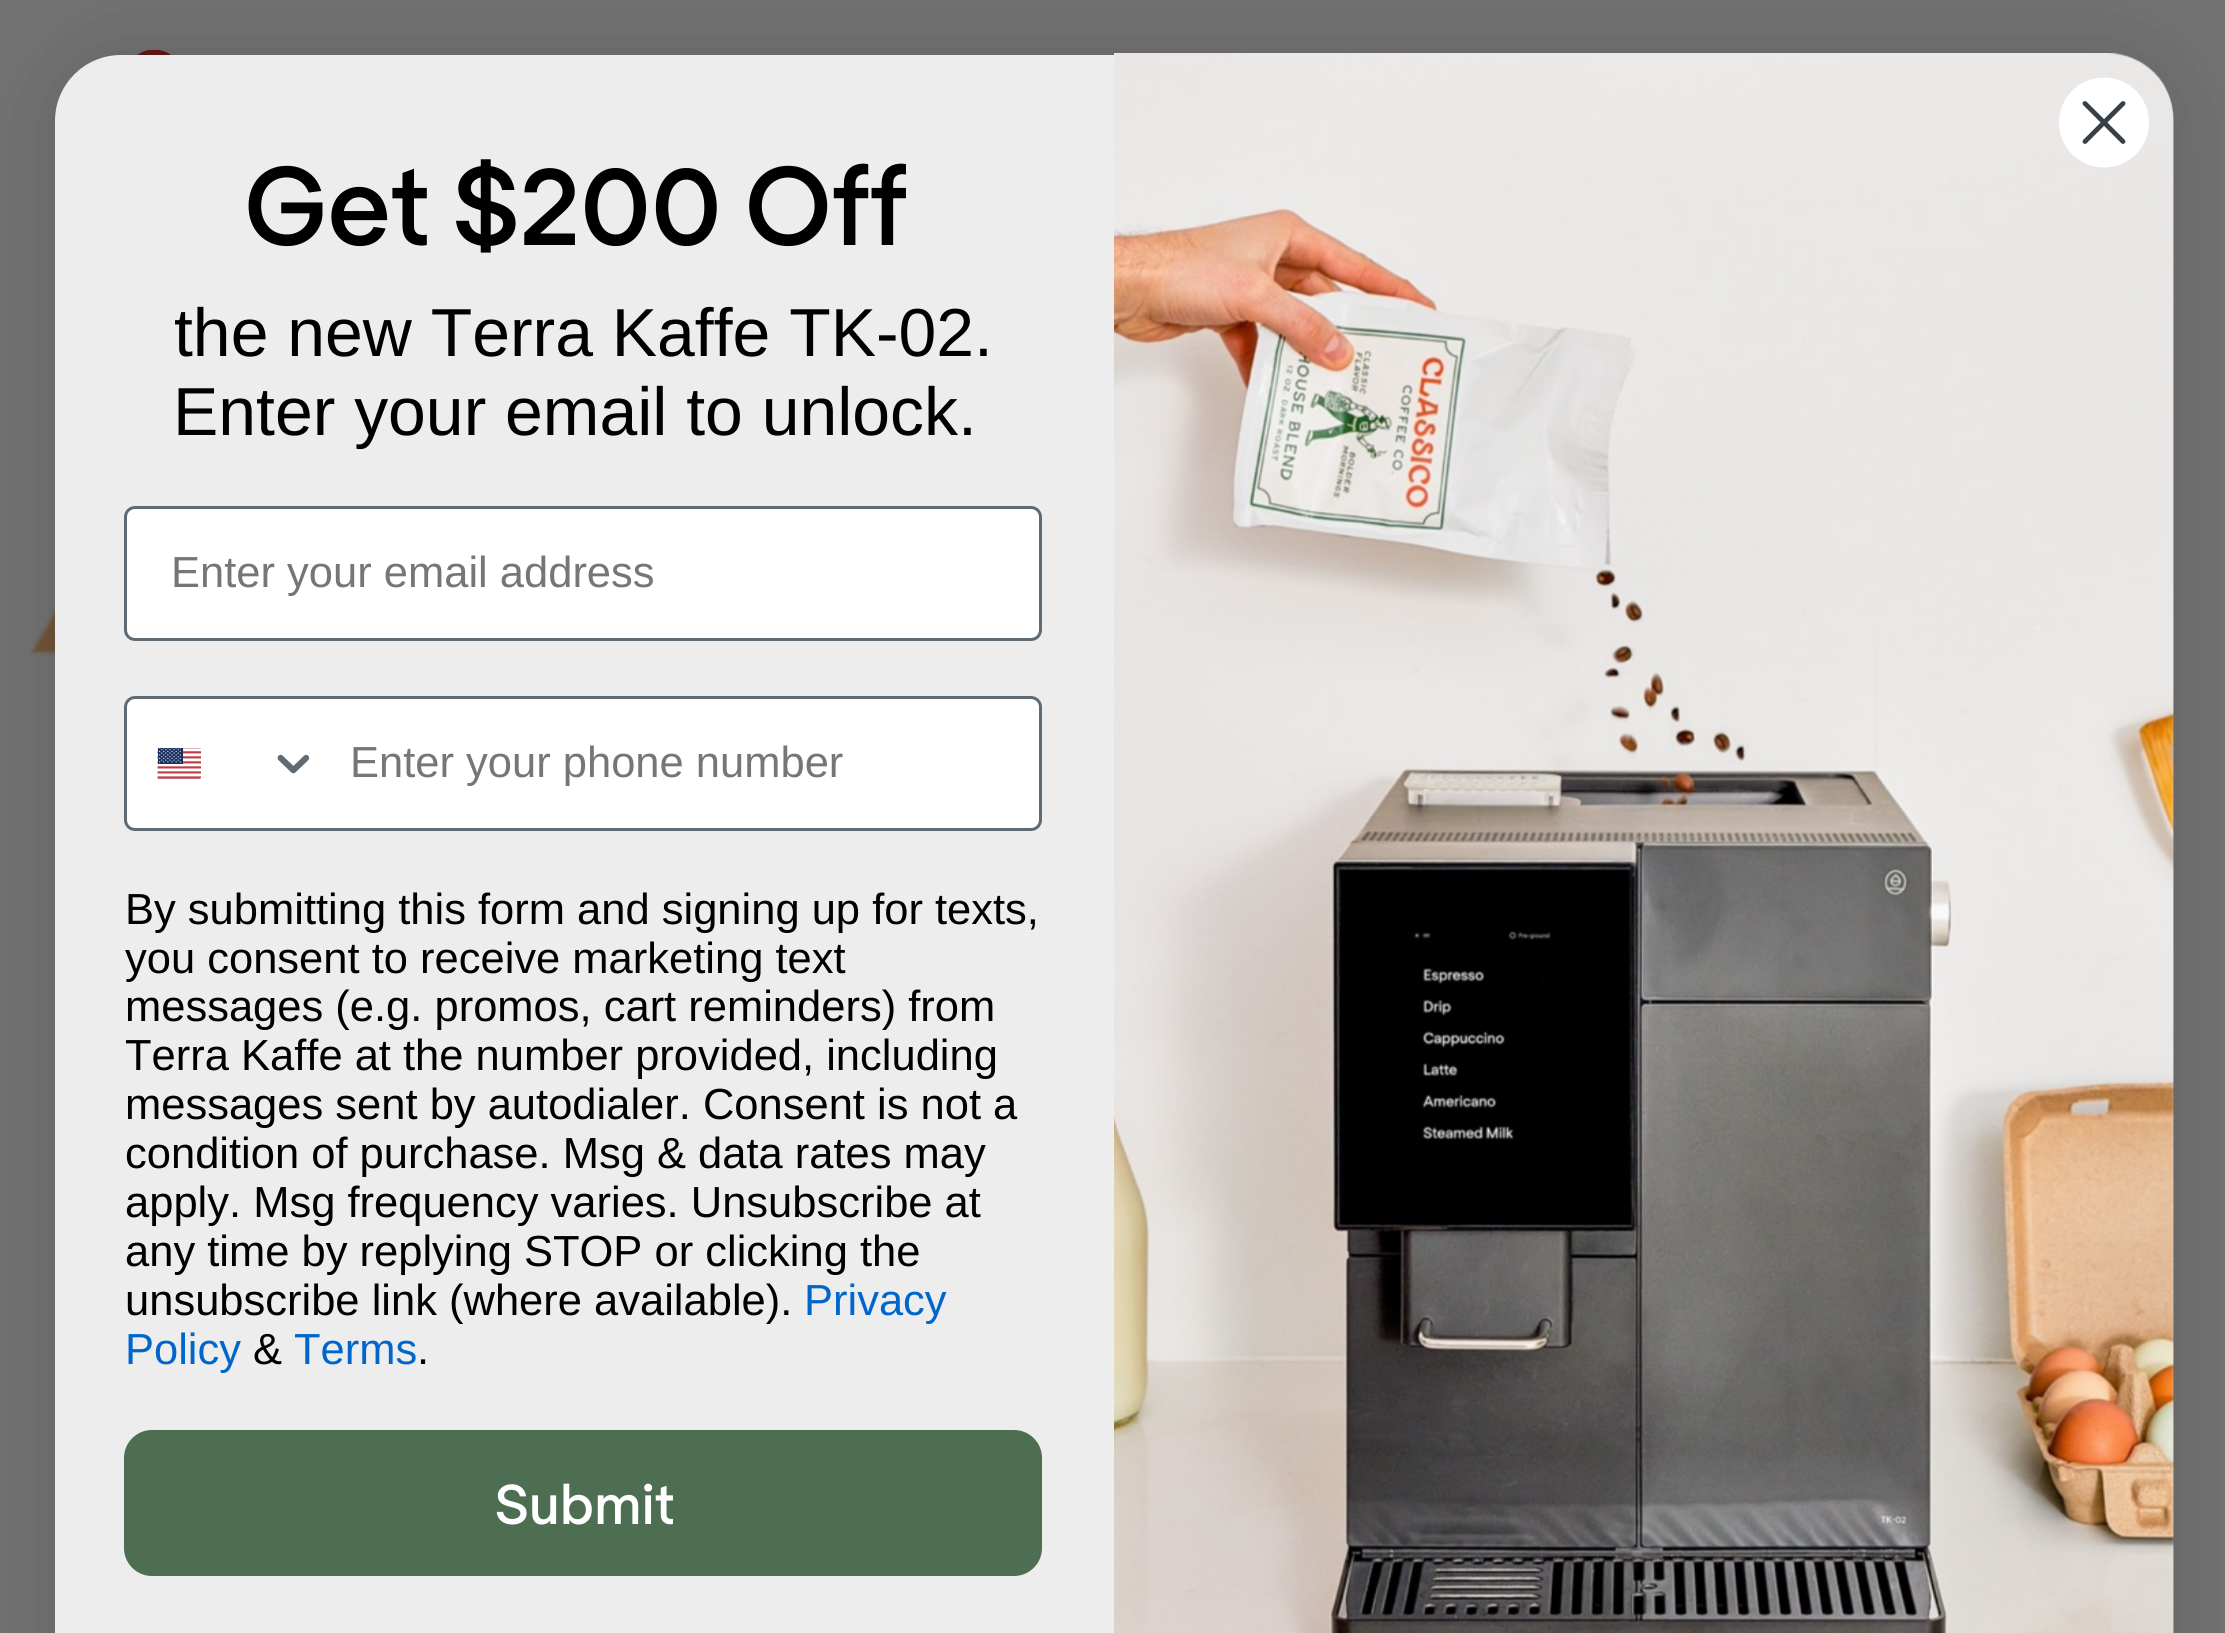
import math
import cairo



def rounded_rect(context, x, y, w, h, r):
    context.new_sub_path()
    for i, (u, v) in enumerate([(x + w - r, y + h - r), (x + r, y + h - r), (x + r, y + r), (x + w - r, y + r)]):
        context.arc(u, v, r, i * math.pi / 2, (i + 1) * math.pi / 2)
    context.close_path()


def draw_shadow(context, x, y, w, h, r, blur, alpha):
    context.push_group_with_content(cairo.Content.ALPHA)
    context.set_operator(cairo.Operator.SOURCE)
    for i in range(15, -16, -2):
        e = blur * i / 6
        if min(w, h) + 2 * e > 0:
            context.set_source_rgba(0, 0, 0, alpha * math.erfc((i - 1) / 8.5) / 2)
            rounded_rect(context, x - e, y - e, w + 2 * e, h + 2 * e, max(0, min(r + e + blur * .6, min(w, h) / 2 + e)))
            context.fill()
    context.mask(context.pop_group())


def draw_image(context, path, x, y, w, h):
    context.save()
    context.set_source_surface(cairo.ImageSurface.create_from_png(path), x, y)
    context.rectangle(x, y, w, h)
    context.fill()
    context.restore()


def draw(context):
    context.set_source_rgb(114 / 255, 114 / 255, 114 / 255)
    context.paint()
    draw_image(context, "images/1.png", 137, 50, 34, 5)
    draw_image(context, "images/2.png", 29, 607, 26, 49)
    context.set_source_rgb(0, 0, 0)
    draw_shadow(context, 55, 55, 2118, 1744, 66, 40.5, 0.15)
    context.set_source_rgb(237 / 255, 237 / 255, 237 / 255)
    context.new_path()
    context.move_to(121, 55)
    context.line_to(2107, 55)
    context.curve_to(2143.5, 55, 2173, 84.5, 2173, 121)
    context.line_to(2173, 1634)
    context.line_to(55, 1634)
    context.line_to(55, 121)
    context.curve_to(55, 84.5, 84.5, 55, 121, 55)
    context.close_path()
    context.fill()
    draw_image(context, "images/5.png", 1114, 53, 1060, 1580)
    context.set_source_rgb(1, 1, 1)
    context.arc(2104, 122.5, 45, 0, 2 * math.pi)
    context.fill()
    context.new_path()
    context.move_to(2085, 103.5)
    context.line_to(2123, 141.5)
    context.move_to(2085, 141.5)
    context.line_to(2123, 103.5)
    context.close_path()
    context.set_source_rgb(55 / 255, 63 / 255, 71 / 255)
    context.set_line_width(4.8)
    context.set_line_cap(cairo.LineCap.ROUND)
    context.set_line_join(cairo.LineJoin.ROUND)
    context.stroke()
    context.set_source_rgb(1, 1, 1)
    rounded_rect(context, 125.5, 507.5, 915, 132, 9.5)
    context.fill_preserve()
    context.set_source_rgb(96 / 255, 106 / 255, 114 / 255)
    context.set_line_width(3)
    context.set_line_cap(cairo.LineCap.BUTT)
    context.set_line_join(cairo.LineJoin.MITER)
    context.stroke()
    context.set_source_rgb(1, 1, 1)
    rounded_rect(context, 125.5, 697.5, 915, 132, 9.5)
    context.fill_preserve()
    context.set_source_rgb(96 / 255, 106 / 255, 114 / 255)
    context.stroke()
    draw_image(context, "images/3.png", 157, 748, 44, 31)
    draw_image(context, "images/4.png", 277, 754, 33, 20)
    context.set_source_rgb(77 / 255, 110 / 255, 81 / 255)
    rounded_rect(context, 124, 1430, 918, 146, 28)
    context.fill()
    context.select_font_face("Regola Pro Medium")
    context.set_font_size(108.5)
    context.set_source_rgb(0, 0, 0)
    context.move_to(244, 245)
    context.show_text("Get $200 Off")
    context.select_font_face("Liberation Sans")
    context.set_font_size(67.9)
    context.move_to(174, 356)
    context.show_text("the new Terra Kaffe TK-02.")
    context.move_to(173, 435)
    context.show_text("Enter your email to unlock.")
    context.set_font_size(43.5)
    context.set_source_rgb(118 / 255, 118 / 255, 118 / 255)
    context.move_to(171, 587)
    context.show_text("Enter your email address")
    context.move_to(350, 777)
    context.show_text("Enter your phone number")
    context.set_source_rgb(0, 0, 0)
    context.move_to(125, 924)
    context.show_text("By submitting this form and signing up for texts,")
    context.move_to(125, 973)
    context.show_text("you consent to receive marketing text")
    context.move_to(125, 1021)
    context.show_text("messages (e.g. promos, cart reminders) from")
    context.move_to(125, 1070)
    context.show_text("Terra Kaffe at the number provided, including")
    context.move_to(125, 1119)
    context.show_text("messages sent by autodialer. Consent is not a")
    context.move_to(125, 1168)
    context.show_text("condition of purchase. Msg & data rates may")
    context.move_to(125, 1217)
    context.show_text("apply. Msg frequency varies. Unsubscribe at")
    context.move_to(125, 1266)
    context.show_text("any time by replying STOP or clicking the")
    context.move_to(125, 1315)
    context.show_text("unsubscribe link (where available).")
    context.set_source_rgb(0, 102 / 255, 204 / 255)
    context.move_to(804, 1315)
    context.show_text("Privacy")
    context.move_to(125, 1364)
    context.show_text("Policy")
    context.set_source_rgb(0, 0, 0)
    context.move_to(253, 1364)
    context.show_text("&")
    context.set_source_rgb(0, 102 / 255, 204 / 255)
    context.move_to(294, 1364)
    context.show_text("Terms")
    context.set_source_rgb(0, 0, 0)
    context.move_to(417, 1364)
    context.show_text(".")
    context.select_font_face("Regola Pro Medium")
    context.set_font_size(54.5)
    context.set_source_rgb(1, 1, 1)
    context.move_to(495, 1524)
    context.show_text("Submit")


surface = cairo.ImageSurface(cairo.Format.RGB24, 2225, 1633)
context = cairo.Context(surface)
options = cairo.FontOptions()
options.set_hint_metrics(cairo.HintMetrics.OFF)
options.set_hint_style(cairo.HintStyle.NONE)
context.set_font_options(options)
context.set_miter_limit(4)
draw(context)
surface.write_to_png("out.png")
